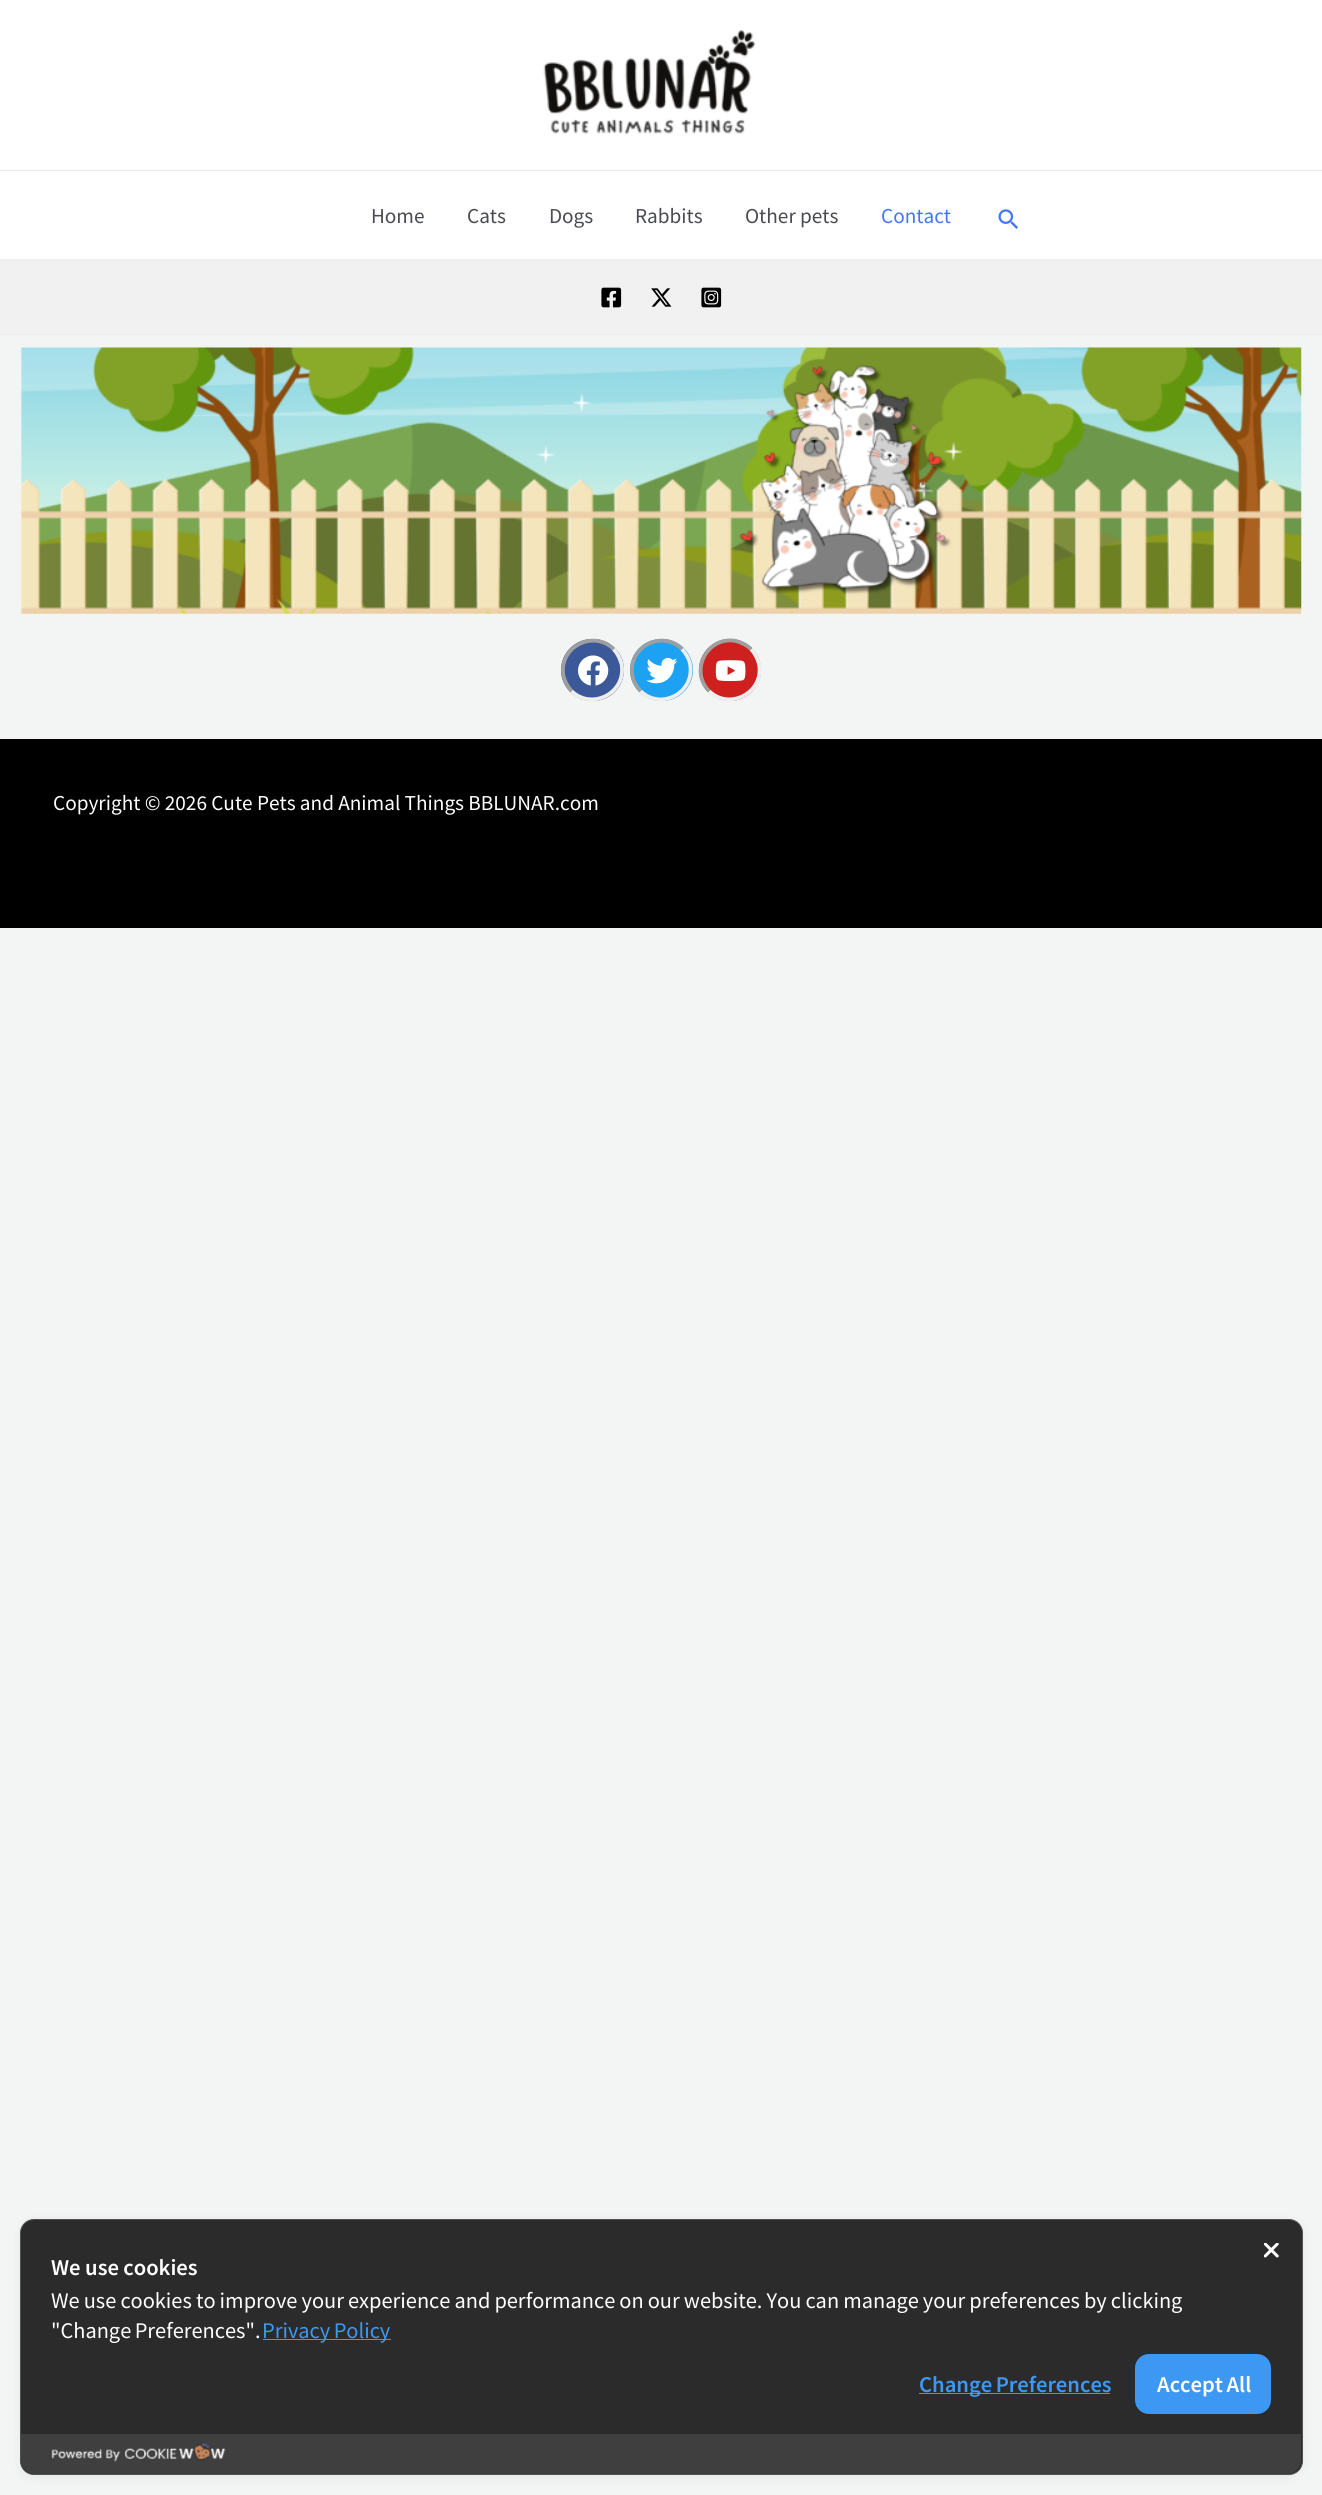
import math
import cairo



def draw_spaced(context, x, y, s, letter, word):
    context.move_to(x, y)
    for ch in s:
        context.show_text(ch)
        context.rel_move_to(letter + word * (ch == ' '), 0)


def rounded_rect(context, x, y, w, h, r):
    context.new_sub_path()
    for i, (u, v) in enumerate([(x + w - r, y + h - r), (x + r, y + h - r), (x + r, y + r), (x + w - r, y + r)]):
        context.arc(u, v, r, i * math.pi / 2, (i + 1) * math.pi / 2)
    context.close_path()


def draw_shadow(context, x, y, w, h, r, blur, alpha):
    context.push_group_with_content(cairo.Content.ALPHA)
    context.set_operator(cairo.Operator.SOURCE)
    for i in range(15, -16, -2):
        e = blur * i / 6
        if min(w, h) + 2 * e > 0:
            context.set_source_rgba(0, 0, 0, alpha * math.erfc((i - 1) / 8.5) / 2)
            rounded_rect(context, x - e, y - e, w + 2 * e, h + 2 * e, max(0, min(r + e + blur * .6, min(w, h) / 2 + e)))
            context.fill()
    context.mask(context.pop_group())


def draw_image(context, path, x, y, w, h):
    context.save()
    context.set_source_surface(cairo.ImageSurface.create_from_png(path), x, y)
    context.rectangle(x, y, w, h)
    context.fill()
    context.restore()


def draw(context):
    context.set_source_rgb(243 / 255, 245 / 255, 245 / 255)
    context.paint()
    context.set_source_rgb(1, 1, 1)
    context.rectangle(0, 0, 1322, 170)
    context.fill()
    context.set_source_rgb(234 / 255, 234 / 255, 234 / 255)
    context.rectangle(0, 170, 1322, 1)
    context.fill()
    draw_image(context, "images/1.png", 543, 29, 213, 106)
    context.set_source_rgb(1, 1, 1)
    context.rectangle(0, 171, 1322, 88)
    context.fill()
    draw_image(context, "images/2.png", 998, 209, 20, 20)
    context.set_source_rgb(241 / 255, 241 / 255, 241 / 255)
    context.rectangle(0, 259, 1322, 75)
    context.fill()
    context.set_source_rgb(234 / 255, 234 / 255, 234 / 255)
    context.rectangle(0, 334, 1322, 1)
    context.fill()
    draw_image(context, "images/3.png", 601, 287, 21, 21)
    draw_image(context, "images/4.png", 651, 288, 21, 19)
    draw_image(context, "images/5.png", 701, 287, 21, 21)
    draw_image(context, "images/6.png", 21, 347, 1281, 267)
    context.set_source_rgb(59 / 255, 89 / 255, 152 / 255)
    rounded_rect(context, 561, 639, 63, 62, 31)
    context.fill()
    context.new_path()
    context.move_to(613.5, 649)
    context.curve_to(617.5, 653.5, 620, 658.5, 621.5, 664)
    context.curve_to(627, 692.5, 592, 711, 571.5, 691)
    context.set_source_rgb(238 / 255, 238 / 255, 238 / 255)
    context.set_line_width(3.8)
    context.stroke()
    context.new_path()
    context.move_to(571.5, 691)
    context.curve_to(567.5, 686.5, 565, 681.5, 563.5, 676)
    context.curve_to(558, 647.5, 593, 629, 613.5, 649)
    context.set_source_rgb(159 / 255, 159 / 255, 159 / 255)
    context.stroke()
    draw_image(context, "images/7.png", 578, 655, 31, 31)
    context.set_source_rgb(29 / 255, 161 / 255, 242 / 255)
    rounded_rect(context, 630, 639, 63, 62, 31)
    context.fill()
    context.new_path()
    context.move_to(682, 649)
    context.curve_to(686, 653.5, 689, 658.5, 690, 664)
    context.curve_to(695.5, 692.5, 661, 711, 640.5, 691)
    context.set_source_rgb(238 / 255, 238 / 255, 238 / 255)
    context.stroke()
    context.new_path()
    context.move_to(640.5, 691)
    context.curve_to(636.5, 686.5, 633.5, 681.5, 632.5, 676)
    context.curve_to(627, 647.5, 661.5, 629, 682, 649)
    context.set_source_rgb(159 / 255, 159 / 255, 159 / 255)
    context.stroke()
    draw_image(context, "images/8.png", 646, 657, 32, 27)
    context.set_source_rgb(205 / 255, 32 / 255, 31 / 255)
    context.arc(730, 670, 31, 0, 2 * math.pi)
    context.fill()
    context.new_path()
    context.move_to(751, 649)
    context.curve_to(755, 653.5, 757.5, 658.5, 759, 664)
    context.curve_to(764.5, 692.5, 729.5, 711, 709, 691)
    context.set_source_rgb(238 / 255, 238 / 255, 238 / 255)
    context.stroke()
    context.new_path()
    context.move_to(709, 691)
    context.curve_to(689, 670.5, 707.5, 635.5, 736, 641)
    context.curve_to(741.5, 642.5, 746.5, 645, 751, 649)
    context.set_source_rgb(159 / 255, 159 / 255, 159 / 255)
    context.stroke()
    draw_image(context, "images/9.png", 715, 660, 31, 22)
    context.set_source_rgb(0, 0, 0)
    context.rectangle(0, 739, 1322, 189)
    context.fill()
    context.set_source_rgb(0, 0, 0)
    draw_shadow(context, 20, 2221, 1283, 257, 14, 5, 0.05)
    context.set_source_rgb(43 / 255, 43 / 255, 43 / 255)
    rounded_rect(context, 20.5, 2219.5, 1282, 255, 13.5)
    context.fill_preserve()
    context.set_source_rgb(80 / 255, 80 / 255, 80 / 255)
    context.set_line_width(1)
    context.stroke()
    draw_image(context, "images/10.png", 1264, 2243, 15, 15)
    context.set_source_rgb(61 / 255, 152 / 255, 243 / 255)
    context.rectangle(263, 2339, 128, 1)
    context.fill()
    context.rectangle(919, 2393, 191, 1)
    context.fill()
    rounded_rect(context, 1135, 2354, 136, 60, 14)
    context.fill()
    context.set_source_rgb(63 / 255, 63 / 255, 63 / 255)
    context.new_path()
    context.move_to(21, 2434)
    context.line_to(1301, 2434)
    context.line_to(1301, 2460)
    context.curve_to(1301, 2467.5, 1294.5, 2474, 1287, 2474)
    context.line_to(35, 2474)
    context.curve_to(27.5, 2474, 21, 2467.5, 21, 2460)
    context.close_path()
    context.fill()
    draw_image(context, "images/11.png", 51, 2442, 175, 20)
    context.select_font_face("Source Sans Pro")
    context.set_font_size(21.25)
    context.set_source_rgb(73 / 255, 75 / 255, 81 / 255)
    context.move_to(371, 223)
    context.show_text("Home")
    context.move_to(467, 223)
    context.show_text("Cats")
    context.move_to(549, 223)
    context.show_text("Dogs")
    context.move_to(635, 223)
    context.show_text("Rabbits")
    context.move_to(745, 223)
    context.show_text("Other pets")
    context.set_source_rgb(65 / 255, 117 / 255, 252 / 255)
    context.move_to(881, 223)
    context.show_text("Contact")
    context.set_source_rgb(1, 1, 1)
    context.move_to(53, 810)
    context.show_text("Copyright © 2026 Cute Pets and Animal Things BBLUNAR.com")
    context.select_font_face("Noto Sans JP SemiBold")
    context.set_font_size(20)
    context.move_to(51, 2275)
    context.show_text("We use cookies")
    context.select_font_face("Noto Sans JP")
    draw_spaced(context, 51, 2308, "We use cookies to improve your experience and performance on our website. You can manage your preferences by clicking", 0, -0.4)
    draw_spaced(context, 51, 2338, "\"Change Preferences\".", 0, -1)
    context.set_source_rgb(61 / 255, 152 / 255, 243 / 255)
    draw_spaced(context, 262, 2338, "Privacy Policy", 0, -1)
    context.select_font_face("Noto Sans JP SemiBold")
    draw_spaced(context, 919, 2392, "Change Preferences", 0, -1)
    context.set_source_rgb(1, 1, 1)
    draw_spaced(context, 1157, 2392, "Accept All", 0, -1)


surface = cairo.ImageSurface(cairo.Format.RGB24, 1322, 2495)
context = cairo.Context(surface)
options = cairo.FontOptions()
options.set_hint_metrics(cairo.HintMetrics.OFF)
options.set_hint_style(cairo.HintStyle.NONE)
context.set_font_options(options)
context.set_miter_limit(4)
draw(context)
surface.write_to_png("out.png")
